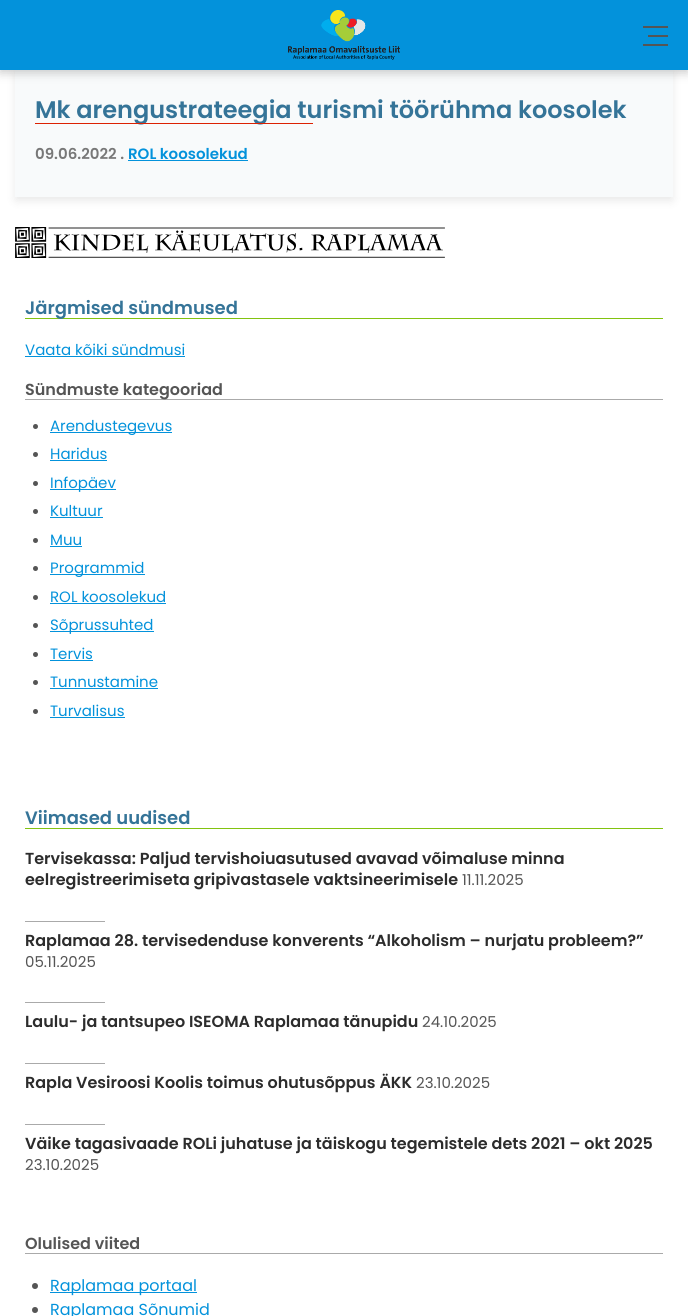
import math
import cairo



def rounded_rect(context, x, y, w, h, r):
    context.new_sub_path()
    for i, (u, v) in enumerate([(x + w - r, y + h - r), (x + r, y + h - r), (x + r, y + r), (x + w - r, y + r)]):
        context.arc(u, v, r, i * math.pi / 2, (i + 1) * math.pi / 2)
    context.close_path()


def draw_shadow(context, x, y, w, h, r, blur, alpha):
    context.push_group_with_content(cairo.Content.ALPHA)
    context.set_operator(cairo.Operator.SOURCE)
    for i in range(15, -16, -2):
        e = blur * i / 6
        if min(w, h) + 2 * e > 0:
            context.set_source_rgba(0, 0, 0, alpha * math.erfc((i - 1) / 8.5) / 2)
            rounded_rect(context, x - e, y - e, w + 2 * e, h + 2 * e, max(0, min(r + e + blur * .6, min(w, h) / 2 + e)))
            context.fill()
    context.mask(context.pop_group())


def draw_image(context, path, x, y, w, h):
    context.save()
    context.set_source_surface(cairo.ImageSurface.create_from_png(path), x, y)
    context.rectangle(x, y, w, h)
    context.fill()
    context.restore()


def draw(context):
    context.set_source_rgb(1, 1, 1)
    context.paint()
    context.set_source_rgb(0, 0, 0)
    draw_shadow(context, 16, 72, 656, 128, 0, 5, 0.1)
    context.set_source_rgb(248 / 255, 250 / 255, 251 / 255)
    context.rectangle(15, 70, 658, 127)
    context.fill()
    context.set_source_rgb(0, 0, 0)
    draw_shadow(context, 0, 3, 688, 70, 0, 5, 0.2)
    context.set_source_rgb(3 / 255, 146 / 255, 219 / 255)
    context.rectangle(0, 0, 688, 70)
    context.fill()
    draw_image(context, "images/1.png", 288, 10, 112, 50)
    context.set_source_rgb(85 / 255, 85 / 255, 85 / 255)
    context.rectangle(648, 35, 20, 2)
    context.fill()
    context.rectangle(643, 26, 25, 2)
    context.fill()
    context.rectangle(643, 44, 25, 2)
    context.fill()
    context.set_source_rgb(3 / 255, 146 / 255, 219 / 255)
    context.rectangle(128, 160, 120, 1)
    context.fill()
    draw_image(context, "images/2.png", 15, 227, 430, 31)
    context.set_source_rgb(130 / 255, 195 / 255, 16 / 255)
    context.rectangle(25, 318, 638, 1)
    context.fill()
    context.set_source_rgb(3 / 255, 146 / 255, 219 / 255)
    context.rectangle(25, 356, 160, 1)
    context.fill()
    context.set_source_rgb(170 / 255, 170 / 255, 170 / 255)
    context.rectangle(25, 399, 638, 1)
    context.fill()
    context.set_source_rgb(85 / 255, 85 / 255, 85 / 255)
    context.arc(35.5, 426.5, 2.5, 0, 2 * math.pi)
    context.fill()
    context.set_source_rgb(3 / 255, 146 / 255, 219 / 255)
    context.rectangle(50, 432, 122, 1)
    context.fill()
    context.set_source_rgb(85 / 255, 85 / 255, 85 / 255)
    context.arc(35.5, 454.5, 2.5, 0, 2 * math.pi)
    context.fill()
    context.set_source_rgb(3 / 255, 146 / 255, 219 / 255)
    context.rectangle(50, 460, 57, 1)
    context.fill()
    context.set_source_rgb(85 / 255, 85 / 255, 85 / 255)
    context.arc(35.5, 483.5, 2.5, 0, 2 * math.pi)
    context.fill()
    context.set_source_rgb(3 / 255, 146 / 255, 219 / 255)
    context.rectangle(50, 489, 66, 1)
    context.fill()
    context.set_source_rgb(85 / 255, 85 / 255, 85 / 255)
    context.arc(35.5, 511.5, 2.5, 0, 2 * math.pi)
    context.fill()
    context.set_source_rgb(3 / 255, 146 / 255, 219 / 255)
    context.rectangle(50, 517, 53, 1)
    context.fill()
    context.set_source_rgb(85 / 255, 85 / 255, 85 / 255)
    context.arc(35.5, 540.5, 2.5, 0, 2 * math.pi)
    context.fill()
    context.set_source_rgb(3 / 255, 146 / 255, 219 / 255)
    context.rectangle(50, 546, 32, 1)
    context.fill()
    context.set_source_rgb(85 / 255, 85 / 255, 85 / 255)
    context.arc(35.5, 568.5, 2.5, 0, 2 * math.pi)
    context.fill()
    context.set_source_rgb(3 / 255, 146 / 255, 219 / 255)
    context.rectangle(50, 574, 95, 1)
    context.fill()
    context.set_source_rgb(85 / 255, 85 / 255, 85 / 255)
    context.arc(35.5, 597.5, 2.5, 0, 2 * math.pi)
    context.fill()
    context.set_source_rgb(3 / 255, 146 / 255, 219 / 255)
    context.rectangle(50, 603, 116, 1)
    context.fill()
    context.set_source_rgb(85 / 255, 85 / 255, 85 / 255)
    context.arc(35.5, 625.5, 2.5, 0, 2 * math.pi)
    context.fill()
    context.set_source_rgb(3 / 255, 146 / 255, 219 / 255)
    context.rectangle(50, 631, 104, 1)
    context.fill()
    context.set_source_rgb(85 / 255, 85 / 255, 85 / 255)
    context.arc(35.5, 654.5, 2.5, 0, 2 * math.pi)
    context.fill()
    context.set_source_rgb(3 / 255, 146 / 255, 219 / 255)
    context.rectangle(50, 660, 43, 1)
    context.fill()
    context.set_source_rgb(85 / 255, 85 / 255, 85 / 255)
    context.arc(35.5, 682.5, 2.5, 0, 2 * math.pi)
    context.fill()
    context.set_source_rgb(3 / 255, 146 / 255, 219 / 255)
    context.rectangle(50, 688, 108, 1)
    context.fill()
    context.set_source_rgb(85 / 255, 85 / 255, 85 / 255)
    context.arc(35.5, 711.5, 2.5, 0, 2 * math.pi)
    context.fill()
    context.set_source_rgb(3 / 255, 146 / 255, 219 / 255)
    context.rectangle(50, 717, 75, 1)
    context.fill()
    context.set_source_rgb(130 / 255, 195 / 255, 16 / 255)
    context.rectangle(25, 828, 638, 1)
    context.fill()
    context.set_source_rgb(170 / 255, 170 / 255, 170 / 255)
    context.rectangle(25, 921, 80, 1)
    context.fill()
    context.rectangle(25, 1002, 80, 1)
    context.fill()
    context.rectangle(25, 1063, 80, 1)
    context.fill()
    context.rectangle(25, 1124, 80, 1)
    context.fill()
    context.rectangle(25, 1253, 638, 1)
    context.fill()
    context.set_source_rgb(85 / 255, 85 / 255, 85 / 255)
    context.arc(35, 1286, 3, 0, 2 * math.pi)
    context.fill()
    context.set_source_rgb(3 / 255, 146 / 255, 219 / 255)
    context.rectangle(50, 1292, 147, 1)
    context.fill()
    context.set_source_rgb(85 / 255, 85 / 255, 85 / 255)
    context.arc(35, 1310, 3, 0, 2 * math.pi)
    context.fill()
    context.select_font_face("Poppins SemiBold")
    context.set_font_size(24)
    context.set_source_rgb(53 / 255, 116 / 255, 152 / 255)
    context.move_to(35, 118)
    context.show_text("Mk arengustrateegia turismi töörühma koosolek")
    context.set_source_rgb(220 / 255, 33 / 255, 2 / 255)
    context.rectangle(35, 123, 278, 1)
    context.fill()
    context.set_font_size(15)
    context.set_source_rgb(120 / 255, 120 / 255, 120 / 255)
    context.move_to(35, 159)
    context.show_text("09.06.2022 .")
    context.set_source_rgb(3 / 255, 146 / 255, 219 / 255)
    context.move_to(128, 159)
    context.show_text("ROL koosolekud")
    context.set_font_size(18)
    context.set_source_rgb(53 / 255, 116 / 255, 152 / 255)
    context.move_to(25, 314)
    context.show_text("Järgmised sündmused")
    context.select_font_face("Poppins")
    context.set_font_size(15)
    context.set_source_rgb(3 / 255, 146 / 255, 219 / 255)
    context.move_to(25, 355)
    context.show_text("Vaata kõiki sündmusi")
    context.select_font_face("Poppins SemiBold")
    context.set_font_size(16)
    context.set_source_rgb(85 / 255, 85 / 255, 85 / 255)
    context.move_to(25, 395)
    context.show_text("Sündmuste kategooriad")
    context.select_font_face("Poppins")
    context.set_font_size(15)
    context.set_source_rgb(3 / 255, 146 / 255, 219 / 255)
    context.move_to(50, 431)
    context.show_text("Arendustegevus")
    context.move_to(50, 459)
    context.show_text("Haridus")
    context.move_to(50, 488)
    context.show_text("Infopäev")
    context.move_to(50, 516)
    context.show_text("Kultuur")
    context.move_to(50, 545)
    context.show_text("Muu")
    context.move_to(50, 573)
    context.show_text("Programmid")
    context.move_to(50, 602)
    context.show_text("ROL koosolekud")
    context.move_to(50, 630)
    context.show_text("Sõprussuhted")
    context.move_to(50, 659)
    context.show_text("Tervis")
    context.move_to(50, 687)
    context.show_text("Tunnustamine")
    context.move_to(50, 716)
    context.show_text("Turvalisus")
    context.select_font_face("Poppins SemiBold")
    context.set_font_size(18)
    context.set_source_rgb(53 / 255, 116 / 255, 152 / 255)
    context.move_to(25, 824)
    context.show_text("Viimased uudised")
    context.set_font_size(16)
    context.set_source_rgb(44 / 255, 44 / 255, 44 / 255)
    context.move_to(25, 864)
    context.show_text("Tervisekassa: Paljud tervishoiuasutused avavad võimaluse minna")
    context.move_to(25, 885)
    context.show_text("eelregistreerimiseta gripivastasele vaktsineerimisele")
    context.select_font_face("Poppins")
    context.set_font_size(15)
    context.set_source_rgb(85 / 255, 85 / 255, 85 / 255)
    context.move_to(462, 885)
    context.show_text("11.11.2025")
    context.select_font_face("Poppins SemiBold")
    context.set_font_size(16)
    context.set_source_rgb(44 / 255, 44 / 255, 44 / 255)
    context.move_to(25, 946)
    context.show_text("Raplamaa 28. tervisedenduse konverents “Alkoholism – nurjatu probleem?”")
    context.select_font_face("Poppins")
    context.set_font_size(15)
    context.set_source_rgb(85 / 255, 85 / 255, 85 / 255)
    context.move_to(25, 967)
    context.show_text("05.11.2025")
    context.select_font_face("Poppins SemiBold")
    context.set_font_size(16)
    context.set_source_rgb(44 / 255, 44 / 255, 44 / 255)
    context.move_to(25, 1027)
    context.show_text("Laulu- ja tantsupeo ISEOMA Raplamaa tänupidu")
    context.select_font_face("Poppins")
    context.set_font_size(15)
    context.set_source_rgb(85 / 255, 85 / 255, 85 / 255)
    context.move_to(422, 1027)
    context.show_text("24.10.2025")
    context.select_font_face("Poppins SemiBold")
    context.set_font_size(16)
    context.set_source_rgb(44 / 255, 44 / 255, 44 / 255)
    context.move_to(25, 1088)
    context.show_text("Rapla Vesiroosi Koolis toimus ohutusõppus ÄKK")
    context.select_font_face("Poppins")
    context.set_font_size(15)
    context.set_source_rgb(85 / 255, 85 / 255, 85 / 255)
    context.move_to(416, 1088)
    context.show_text("23.10.2025")
    context.select_font_face("Poppins SemiBold")
    context.set_font_size(16)
    context.set_source_rgb(44 / 255, 44 / 255, 44 / 255)
    context.move_to(25, 1149)
    context.show_text("Väike tagasivaade ROLi juhatuse ja täiskogu tegemistele dets 2021 – okt 2025")
    context.select_font_face("Poppins")
    context.set_font_size(15)
    context.set_source_rgb(85 / 255, 85 / 255, 85 / 255)
    context.move_to(25, 1170)
    context.show_text("23.10.2025")
    context.select_font_face("Poppins SemiBold")
    context.set_font_size(16)
    context.move_to(25, 1249)
    context.show_text("Olulised viited")
    context.select_font_face("Poppins")
    context.set_source_rgb(3 / 255, 146 / 255, 219 / 255)
    context.move_to(50, 1291)
    context.show_text("Raplamaa portaal")
    context.move_to(50, 1315)
    context.show_text("Raplamaa Sõnumid")


surface = cairo.ImageSurface(cairo.Format.RGB24, 688, 1316)
context = cairo.Context(surface)
options = cairo.FontOptions()
options.set_hint_metrics(cairo.HintMetrics.OFF)
options.set_hint_style(cairo.HintStyle.NONE)
context.set_font_options(options)
context.set_miter_limit(4)
draw(context)
surface.write_to_png("out.png")
